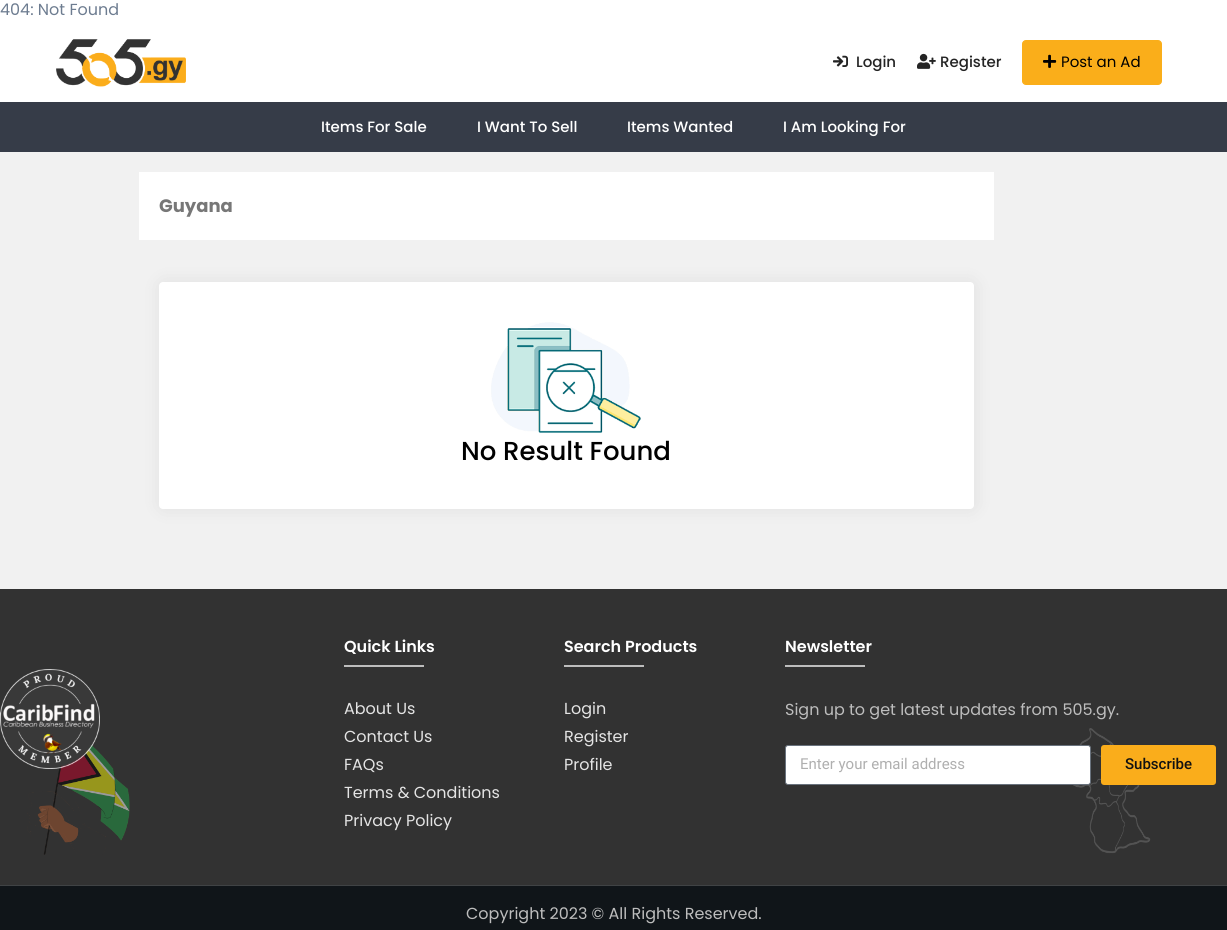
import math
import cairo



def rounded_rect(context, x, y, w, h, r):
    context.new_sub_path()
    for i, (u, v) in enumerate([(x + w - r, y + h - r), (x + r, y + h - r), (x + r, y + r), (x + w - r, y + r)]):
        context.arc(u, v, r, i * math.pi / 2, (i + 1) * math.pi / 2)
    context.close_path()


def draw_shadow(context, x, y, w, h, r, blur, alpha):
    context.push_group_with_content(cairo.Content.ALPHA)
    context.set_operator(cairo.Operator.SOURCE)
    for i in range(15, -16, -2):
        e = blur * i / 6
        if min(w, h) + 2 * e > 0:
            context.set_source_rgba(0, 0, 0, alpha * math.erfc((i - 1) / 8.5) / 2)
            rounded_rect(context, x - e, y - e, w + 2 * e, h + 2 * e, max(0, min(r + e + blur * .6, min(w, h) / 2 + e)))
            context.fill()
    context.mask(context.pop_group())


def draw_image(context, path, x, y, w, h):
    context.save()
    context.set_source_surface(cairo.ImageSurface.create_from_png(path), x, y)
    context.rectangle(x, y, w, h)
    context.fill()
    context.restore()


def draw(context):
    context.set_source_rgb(1, 1, 1)
    context.paint()
    draw_image(context, "images/1.png", 56, 39, 130, 48)
    draw_image(context, "images/2.png", 833, 55, 15, 12)
    draw_image(context, "images/3.png", 917, 53, 19, 16)
    context.set_source_rgb(250 / 255, 174 / 255, 26 / 255)
    rounded_rect(context, 1022.5, 40.5, 139, 44, 3.5)
    context.fill_preserve()
    context.set_line_width(1)
    context.stroke()
    draw_image(context, "images/4.png", 1043, 54, 14, 14)
    context.set_source_rgb(54 / 255, 60 / 255, 72 / 255)
    context.rectangle(0, 102, 1227, 50)
    context.fill()
    context.set_source_rgb(241 / 255, 241 / 255, 241 / 255)
    context.rectangle(0, 152, 1227, 437)
    context.fill()
    context.set_source_rgb(1, 1, 1)
    context.rectangle(139, 172, 855, 68)
    context.fill()
    context.set_source_rgb(0, 0, 0)
    draw_shadow(context, 160, 282, 815, 227, 4, 10, 0.07)
    context.set_source_rgb(1, 1, 1)
    rounded_rect(context, 159, 282, 815, 227, 4)
    context.fill()
    draw_image(context, "images/5.png", 491, 322, 150, 111)
    context.set_source_rgb(50 / 255, 50 / 255, 50 / 255)
    context.rectangle(0, 589, 1227, 296)
    context.fill()
    draw_image(context, "images/6.png", 27, 728, 1124, 127)
    draw_image(context, "images/7.png", 0, 669, 100, 100)
    context.set_source_rgb(189 / 255, 189 / 255, 189 / 255)
    context.rectangle(344, 665, 80, 2)
    context.fill()
    context.rectangle(564, 665, 80, 2)
    context.fill()
    context.rectangle(785, 665, 80, 2)
    context.fill()
    context.set_source_rgb(1, 1, 1)
    rounded_rect(context, 785.5, 745.5, 305, 39, 2.5)
    context.fill_preserve()
    context.set_source_rgb(105 / 255, 114 / 255, 125 / 255)
    context.stroke()
    context.set_source_rgb(250 / 255, 173 / 255, 27 / 255)
    rounded_rect(context, 1101, 745, 115, 40, 3)
    context.fill()
    context.set_source_rgb(16 / 255, 21 / 255, 25 / 255)
    context.rectangle(0, 886, 1227, 44)
    context.fill()
    context.set_source_rgb(64 / 255, 67 / 255, 69 / 255)
    context.rectangle(0, 885, 1227, 1)
    context.fill()
    context.select_font_face("Poppins")
    context.set_font_size(16)
    context.set_source_rgb(109 / 255, 124 / 255, 144 / 255)
    context.move_to(0, 15)
    context.show_text("404: Not Found")
    context.select_font_face("Poppins Medium")
    context.set_font_size(15)
    context.set_source_rgb(36 / 255, 36 / 255, 36 / 255)
    context.move_to(856, 67)
    context.show_text("Login")
    context.move_to(940, 67)
    context.show_text("Register")
    context.select_font_face("Poppins")
    context.set_source_rgb(0, 0, 0)
    context.move_to(1061, 67)
    context.show_text("Post an Ad")
    context.select_font_face("Poppins Medium")
    context.set_source_rgb(1, 1, 1)
    context.move_to(321, 132)
    context.show_text("Items For Sale")
    context.move_to(477, 132)
    context.show_text("I Want To Sell")
    context.move_to(627, 132)
    context.show_text("Items Wanted")
    context.move_to(783, 132)
    context.show_text("I Am Looking For")
    context.select_font_face("Poppins", cairo.FontSlant.NORMAL, cairo.FontWeight.BOLD)
    context.set_font_size(18)
    context.set_source_rgb(119 / 255, 119 / 255, 119 / 255)
    context.move_to(159, 212)
    context.show_text("Guyana")
    context.select_font_face("Poppins Medium")
    context.set_font_size(26)
    context.set_source_rgb(0, 0, 0)
    context.move_to(461, 460)
    context.show_text("No Result Found")
    context.select_font_face("Poppins SemiBold")
    context.set_font_size(16)
    context.set_source_rgb(1, 1, 1)
    context.move_to(344, 652)
    context.show_text("Quick Links")
    context.select_font_face("Poppins")
    context.set_source_rgb(228 / 255, 228 / 255, 228 / 255)
    context.move_to(344, 714)
    context.show_text("About Us")
    context.move_to(344, 742)
    context.show_text("Contact Us")
    context.move_to(344, 770)
    context.show_text("FAQs")
    context.move_to(344, 798)
    context.show_text("Terms & Conditions")
    context.move_to(344, 826)
    context.show_text("Privacy Policy")
    context.select_font_face("Poppins SemiBold")
    context.set_source_rgb(1, 1, 1)
    context.move_to(564, 652)
    context.show_text("Search Products")
    context.select_font_face("Poppins")
    context.set_source_rgb(228 / 255, 228 / 255, 228 / 255)
    context.move_to(564, 714)
    context.show_text("Login")
    context.move_to(564, 742)
    context.show_text("Register")
    context.move_to(564, 770)
    context.show_text("Profile")
    context.select_font_face("Poppins SemiBold")
    context.set_source_rgb(1, 1, 1)
    context.move_to(785, 652)
    context.show_text("Newsletter")
    context.select_font_face("Poppins")
    context.set_source_rgb(189 / 255, 189 / 255, 189 / 255)
    context.move_to(785, 715)
    context.show_text("Sign up to get latest updates from 505.gy.")
    context.select_font_face("Roboto")
    context.set_font_size(15)
    context.set_source_rgb(175 / 255, 175 / 255, 175 / 255)
    context.move_to(800, 769)
    context.show_text("Enter your email address")
    context.select_font_face("Roboto Medium")
    context.set_source_rgb(17 / 255, 17 / 255, 17 / 255)
    context.move_to(1125, 769)
    context.show_text("Subscribe")
    context.select_font_face("Poppins")
    context.set_font_size(16)
    context.set_source_rgb(189 / 255, 189 / 255, 189 / 255)
    context.move_to(466, 919)
    context.show_text("Copyright 2023 © All Rights Reserved.")


surface = cairo.ImageSurface(cairo.Format.RGB24, 1227, 930)
context = cairo.Context(surface)
options = cairo.FontOptions()
options.set_hint_metrics(cairo.HintMetrics.OFF)
options.set_hint_style(cairo.HintStyle.NONE)
context.set_font_options(options)
context.set_miter_limit(4)
draw(context)
surface.write_to_png("out.png")
